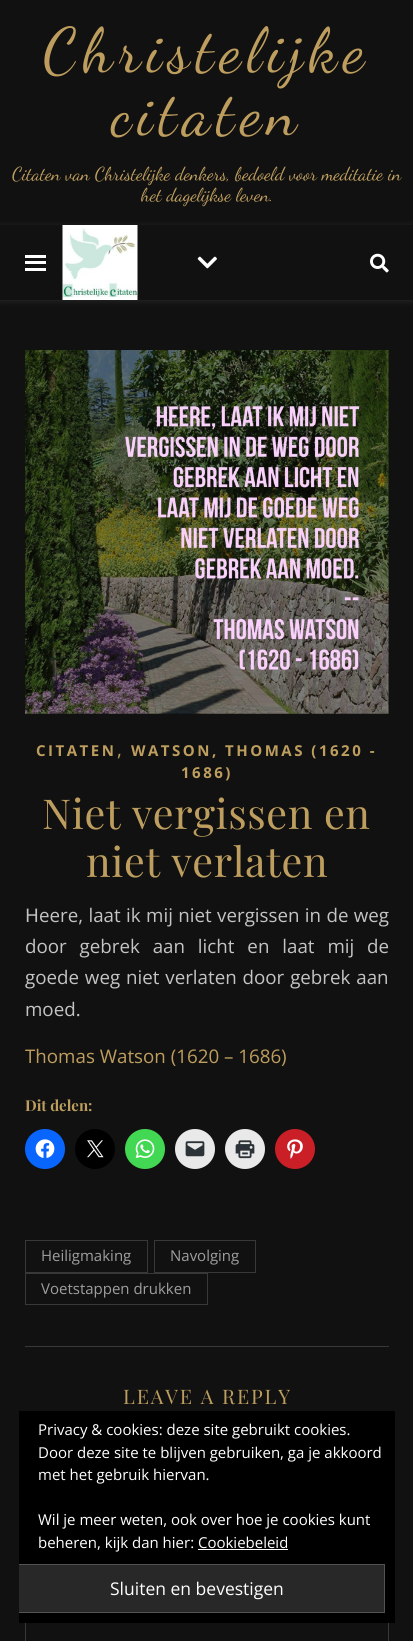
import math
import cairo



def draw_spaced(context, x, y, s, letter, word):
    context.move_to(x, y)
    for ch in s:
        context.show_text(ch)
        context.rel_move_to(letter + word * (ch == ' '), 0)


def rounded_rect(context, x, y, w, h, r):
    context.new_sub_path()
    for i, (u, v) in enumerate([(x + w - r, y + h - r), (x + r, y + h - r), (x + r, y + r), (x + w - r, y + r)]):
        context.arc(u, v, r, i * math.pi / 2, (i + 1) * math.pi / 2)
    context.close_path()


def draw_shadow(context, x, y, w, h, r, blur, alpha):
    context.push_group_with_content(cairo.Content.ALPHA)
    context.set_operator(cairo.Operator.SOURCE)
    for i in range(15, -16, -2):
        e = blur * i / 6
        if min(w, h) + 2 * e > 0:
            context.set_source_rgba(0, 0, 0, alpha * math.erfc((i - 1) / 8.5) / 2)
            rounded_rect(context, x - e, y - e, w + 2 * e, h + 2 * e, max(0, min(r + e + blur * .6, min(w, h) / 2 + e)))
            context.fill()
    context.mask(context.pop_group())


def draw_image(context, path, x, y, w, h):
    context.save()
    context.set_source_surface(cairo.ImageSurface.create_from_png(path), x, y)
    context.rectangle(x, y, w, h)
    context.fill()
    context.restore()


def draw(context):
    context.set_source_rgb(17 / 255, 17 / 255, 17 / 255)
    context.paint()
    context.set_source_rgb(1, 1, 1)
    draw_shadow(context, 0, 226, 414, 75, 0, 3, 0.1)
    context.set_source_rgb(17 / 255, 17 / 255, 17 / 255)
    context.rectangle(0, 225, 413, 75)
    context.fill()
    context.set_source_rgb(1, 1, 1)
    context.rectangle(25, 255, 21, 3)
    context.fill()
    context.rectangle(25, 261, 21, 3)
    context.fill()
    context.rectangle(25, 268, 21, 3)
    context.fill()
    draw_image(context, "images/1.png", 62, 225, 76, 75)
    draw_image(context, "images/2.png", 197, 256, 20, 13)
    draw_image(context, "images/3.png", 370, 253, 19, 20)
    draw_image(context, "images/4.png", 25, 350, 364, 364)
    context.set_source_rgb(8 / 255, 102 / 255, 1)
    context.arc(45, 1149, 20, 0, 2 * math.pi)
    context.fill()
    draw_image(context, "images/5.png", 35, 1139, 20, 19)
    context.set_source_rgb(0, 0, 0)
    context.arc(95, 1149, 20, 0, 2 * math.pi)
    context.fill()
    draw_image(context, "images/6.png", 87, 1140, 17, 18)
    context.set_source_rgb(67 / 255, 216 / 255, 84 / 255)
    context.arc(145, 1149, 20, 0, 2 * math.pi)
    context.fill()
    draw_image(context, "images/7.png", 135, 1139, 20, 19)
    context.set_source_rgb(233 / 255, 233 / 255, 233 / 255)
    context.arc(195, 1149, 20, 0, 2 * math.pi)
    context.fill()
    draw_image(context, "images/8.png", 185, 1141, 20, 16)
    context.arc(245, 1149, 20, 0, 2 * math.pi)
    context.fill()
    draw_image(context, "images/9.png", 235, 1140, 20, 19)
    context.set_source_rgb(202 / 255, 31 / 255, 39 / 255)
    context.arc(295, 1149, 20, 0, 2 * math.pi)
    context.fill()
    draw_image(context, "images/10.png", 287, 1139, 16, 20)
    context.set_source_rgb(56 / 255, 56 / 255, 56 / 255)
    context.rectangle(25, 1346, 364, 1)
    context.fill()
    context.rectangle(25.5, 1240.5, 122, 32)
    context.set_line_width(1)
    context.stroke()
    context.rectangle(154.5, 1240.5, 101, 32)
    context.stroke()
    context.rectangle(25.5, 1273.5, 182, 31)
    context.stroke()
    context.rectangle(25.5, 1588.5, 363, 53)
    context.stroke()
    context.set_source_rgb(0, 0, 0)
    context.rectangle(19, 1411, 376, 212)
    context.fill()
    context.set_source_rgb(1, 1, 1)
    context.rectangle(198, 1549, 90, 1)
    context.fill()
    context.set_source_rgb(40 / 255, 40 / 255, 40 / 255)
    context.rectangle(19, 1565, 365, 47)
    context.fill()
    context.save()
    context.rectangle(19, 1411, 376, 212)
    context.clip()
    context.rectangle(9.5, 1564.5, 375, 48)
    context.set_source_rgb(83 / 255, 83 / 255, 83 / 255)
    context.stroke()
    context.restore()
    context.select_font_face("Dancing Script")
    context.set_font_size(62.5)
    context.set_source_rgb(190 / 255, 158 / 255, 94 / 255)
    draw_spaced(context, 43, 71, "Christelijke", 6.25, 0)
    draw_spaced(context, 111, 134, "citaten", 6.25, 0)
    context.set_font_size(18.75)
    context.move_to(12, 180)
    context.show_text("Citaten van Christelijke denkers, bedoeld voor meditatie in")
    context.move_to(141, 201)
    context.show_text("het dagelijkse leven.")
    context.select_font_face("Open Sans", cairo.FontSlant.NORMAL, cairo.FontWeight.BOLD)
    context.set_font_size(15)
    draw_spaced(context, 36, 756, "CITATEN", 2.5, 0)
    context.select_font_face("Open Sans")
    context.set_font_size(18.75)
    context.move_to(117, 756)
    context.show_text(",")
    context.select_font_face("Open Sans", cairo.FontSlant.NORMAL, cairo.FontWeight.BOLD)
    context.set_font_size(15)
    draw_spaced(context, 131, 756, "WATSON, THOMAS (1620 -", 2.5, 0)
    draw_spaced(context, 181, 778, "1686)", 2.5, 0)
    context.select_font_face("Playfair Display")
    context.set_font_size(41.25)
    draw_spaced(context, 42, 829, "Niet vergissen en", 0.6, 0)
    draw_spaced(context, 86, 877, "niet verlaten", 0.6, 0)
    context.select_font_face("Noto Sans")
    context.set_font_size(18.75)
    context.set_source_rgb(196 / 255, 196 / 255, 196 / 255)
    context.move_to(25, 922)
    context.show_text("H")
    context.select_font_face("Open Sans")
    draw_spaced(context, 39, 922, "eere, laat ik mij niet vergissen in de weg", 0, 0.5)
    draw_spaced(context, 25, 953, "door gebrek aan licht en laat mij de", 0, 8)
    draw_spaced(context, 25, 984, "goede weg niet verlaten door gebrek aan", 0, 1)
    context.move_to(25, 1016)
    context.show_text("moed.")
    context.set_source_rgb(190 / 255, 158 / 255, 94 / 255)
    context.move_to(25, 1063)
    context.show_text("Thomas Watson (1620 – 1686)")
    context.select_font_face("Playfair Display", cairo.FontSlant.NORMAL, cairo.FontWeight.BOLD)
    context.set_font_size(15)
    context.move_to(25, 1111)
    context.show_text("Dit delen:")
    context.select_font_face("Open Sans")
    context.set_source_rgb(158 / 255, 158 / 255, 158 / 255)
    context.move_to(41, 1261)
    context.show_text("Heiligmaking")
    context.move_to(170, 1261)
    context.show_text("Navolging")
    context.move_to(41, 1294)
    context.show_text("Voetstappen drukken")
    context.select_font_face("Playfair Display")
    context.set_font_size(20)
    context.set_source_rgb(190 / 255, 158 / 255, 94 / 255)
    draw_spaced(context, 123, 1404, "LEAVE A REPLY", 1.9, 0)
    context.select_font_face("Open Sans")
    context.set_font_size(15)
    context.set_source_rgb(1, 1, 1)
    context.move_to(38, 1435)
    context.show_text("Privacy & cookies: deze site gebruikt cookies.")
    context.move_to(38, 1458)
    context.show_text("Door deze site te blijven gebruiken, ga je akkoord")
    context.move_to(38, 1480)
    context.show_text("met het gebruik hiervan.")
    context.move_to(38, 1525)
    context.show_text("Wil je meer weten, ook over hoe je cookies kunt")
    context.move_to(38, 1548)
    context.show_text("beheren, kijk dan hier: Cookiebeleid")
    context.set_font_size(17.5)
    context.move_to(110, 1595)
    context.show_text("Sluiten en bevestigen")


surface = cairo.ImageSurface(cairo.Format.RGB24, 413, 1641)
context = cairo.Context(surface)
options = cairo.FontOptions()
options.set_hint_metrics(cairo.HintMetrics.OFF)
options.set_hint_style(cairo.HintStyle.NONE)
context.set_font_options(options)
context.set_miter_limit(4)
draw(context)
surface.write_to_png("out.png")
